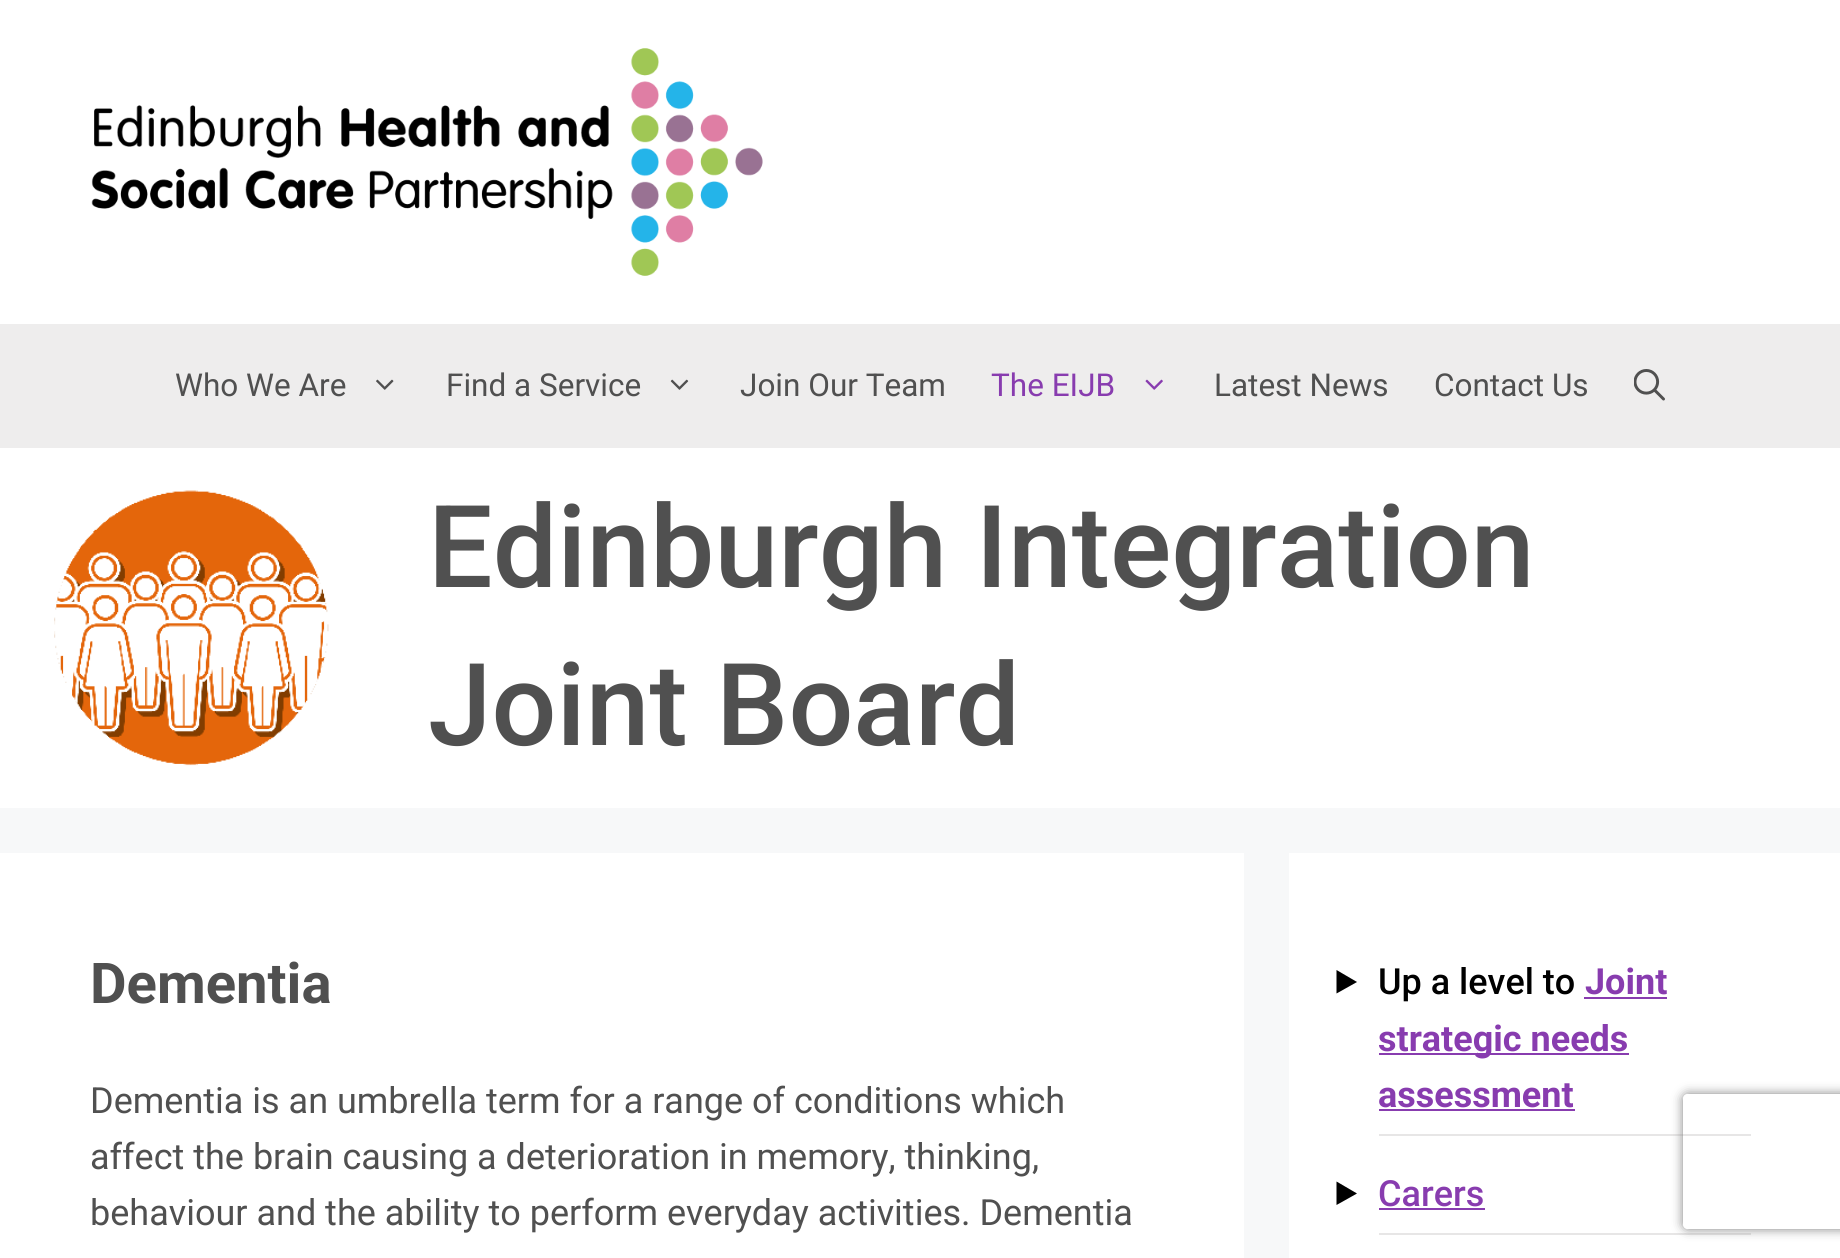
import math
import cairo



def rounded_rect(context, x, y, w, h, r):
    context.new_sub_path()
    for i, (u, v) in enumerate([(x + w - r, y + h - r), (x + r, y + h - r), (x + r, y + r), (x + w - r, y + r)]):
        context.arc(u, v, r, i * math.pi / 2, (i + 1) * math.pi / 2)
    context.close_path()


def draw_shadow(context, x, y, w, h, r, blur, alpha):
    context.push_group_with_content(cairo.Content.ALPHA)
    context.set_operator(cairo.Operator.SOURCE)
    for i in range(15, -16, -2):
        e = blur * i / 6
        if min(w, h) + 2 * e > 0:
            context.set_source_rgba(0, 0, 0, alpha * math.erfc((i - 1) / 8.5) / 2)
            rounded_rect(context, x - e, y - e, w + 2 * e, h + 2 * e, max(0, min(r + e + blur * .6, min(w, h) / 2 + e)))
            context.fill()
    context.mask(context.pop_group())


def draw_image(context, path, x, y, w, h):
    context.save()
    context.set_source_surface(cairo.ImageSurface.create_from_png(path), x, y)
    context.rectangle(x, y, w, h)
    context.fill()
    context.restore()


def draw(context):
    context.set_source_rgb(247 / 255, 248 / 255, 249 / 255)
    context.paint()
    context.set_source_rgb(1, 1, 1)
    context.rectangle(0, 0, 1840, 324)
    context.fill()
    draw_image(context, "images/1.png", 91, 48, 672, 228)
    context.set_source_rgb(238 / 255, 237 / 255, 237 / 255)
    context.rectangle(0, 324, 1840, 124)
    context.fill()
    draw_image(context, "images/2.png", 376, 379, 18, 11)
    draw_image(context, "images/3.png", 670, 379, 19, 11)
    draw_image(context, "images/4.png", 1145, 379, 18, 11)
    draw_image(context, "images/5.png", 1634, 369, 31, 32)
    context.set_source_rgb(1, 1, 1)
    context.rectangle(0, 448, 1840, 360)
    context.fill()
    draw_image(context, "images/6.png", 54, 490, 275, 276)
    context.rectangle(0, 853, 1244, 405)
    context.fill()
    context.rectangle(1289, 853, 551, 405)
    context.fill()
    context.set_source_rgb(231 / 255, 230 / 255, 230 / 255)
    context.rectangle(1379, 1134, 372, 2)
    context.fill()
    context.set_source_rgb(0, 0, 0)
    context.new_path()
    context.move_to(1336.5, 970)
    context.line_to(1357, 982)
    context.line_to(1336.5, 993.5)
    context.close_path()
    context.fill()
    context.set_source_rgb(136 / 255, 60 / 255, 175 / 255)
    context.rectangle(1584, 997, 83, 2)
    context.fill()
    context.rectangle(1379, 1053, 250, 2)
    context.fill()
    context.rectangle(1379, 1109, 196, 2)
    context.fill()
    context.set_source_rgb(231 / 255, 230 / 255, 230 / 255)
    context.rectangle(1379, 1233, 372, 2)
    context.fill()
    context.set_source_rgb(0, 0, 0)
    context.new_path()
    context.move_to(1336.5, 1181.5)
    context.line_to(1357, 1193.5)
    context.line_to(1336.5, 1205)
    context.close_path()
    context.fill()
    context.set_source_rgb(136 / 255, 60 / 255, 175 / 255)
    context.rectangle(1379, 1208, 106, 2)
    context.fill()
    context.save()
    context.set_fill_rule(cairo.FillRule.EVEN_ODD)
    context.new_path()
    context.move_to(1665, 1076)
    context.line_to(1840, 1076)
    context.line_to(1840, 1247)
    context.line_to(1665, 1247)
    context.close_path()
    context.move_to(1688, 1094)
    context.line_to(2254, 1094)
    context.curve_to(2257, 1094, 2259, 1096, 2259, 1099)
    context.line_to(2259, 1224)
    context.curve_to(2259, 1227, 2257, 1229, 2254, 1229)
    context.line_to(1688, 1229)
    context.curve_to(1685, 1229, 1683, 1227, 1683, 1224)
    context.line_to(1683, 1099)
    context.curve_to(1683, 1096, 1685, 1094, 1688, 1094)
    context.close_path()
    context.clip()
    context.set_source_rgb(128 / 255, 128 / 255, 128 / 255)
    draw_shadow(context, 1683, 1094, 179, 135, 5, 5.5, 1)
    context.restore()
    context.select_font_face("Roboto")
    context.set_font_size(31.5)
    context.set_source_rgb(80 / 255, 80 / 255, 80 / 255)
    context.move_to(175, 396)
    context.show_text("Who We Are")
    context.move_to(446, 396)
    context.show_text("Find a Service")
    context.move_to(740, 396)
    context.show_text("Join Our Team")
    context.set_source_rgb(136 / 255, 60 / 255, 175 / 255)
    context.move_to(991, 396)
    context.show_text("The EIJB")
    context.set_source_rgb(80 / 255, 80 / 255, 80 / 255)
    context.move_to(1214, 396)
    context.show_text("Latest News")
    context.move_to(1434, 396)
    context.show_text("Contact Us")
    context.select_font_face("Roboto Medium")
    context.set_font_size(114.5)
    context.move_to(428, 587)
    context.show_text("Edinburgh Integration")
    context.move_to(428, 745)
    context.show_text("Joint Board")
    context.select_font_face("Roboto", cairo.FontSlant.NORMAL, cairo.FontWeight.BOLD)
    context.set_font_size(56.25)
    context.move_to(90, 1003)
    context.show_text("Dementia")
    context.select_font_face("Roboto")
    context.set_font_size(36)
    context.move_to(90, 1113)
    context.show_text("Dementia is an umbrella term for a range of conditions which")
    context.move_to(90, 1169)
    context.show_text("affect the brain causing a deterioration in memory, thinking,")
    context.move_to(90, 1225)
    context.show_text("behaviour and the ability to perform everyday activities. Dementia")
    context.select_font_face("Roboto Medium")
    context.set_source_rgb(0, 0, 0)
    context.move_to(1378, 994)
    context.show_text("Up a level to")
    context.select_font_face("Roboto", cairo.FontSlant.NORMAL, cairo.FontWeight.BOLD)
    context.set_source_rgb(136 / 255, 60 / 255, 175 / 255)
    context.move_to(1585, 994)
    context.show_text("Joint")
    context.move_to(1378, 1051)
    context.show_text("strategic needs")
    context.move_to(1378, 1107)
    context.show_text("assessment")
    context.select_font_face("Roboto Medium")
    context.move_to(1378, 1206)
    context.show_text("Carers")


surface = cairo.ImageSurface(cairo.Format.RGB24, 1840, 1258)
context = cairo.Context(surface)
options = cairo.FontOptions()
options.set_hint_metrics(cairo.HintMetrics.OFF)
options.set_hint_style(cairo.HintStyle.NONE)
context.set_font_options(options)
context.set_miter_limit(4)
draw(context)
surface.write_to_png("out.png")
